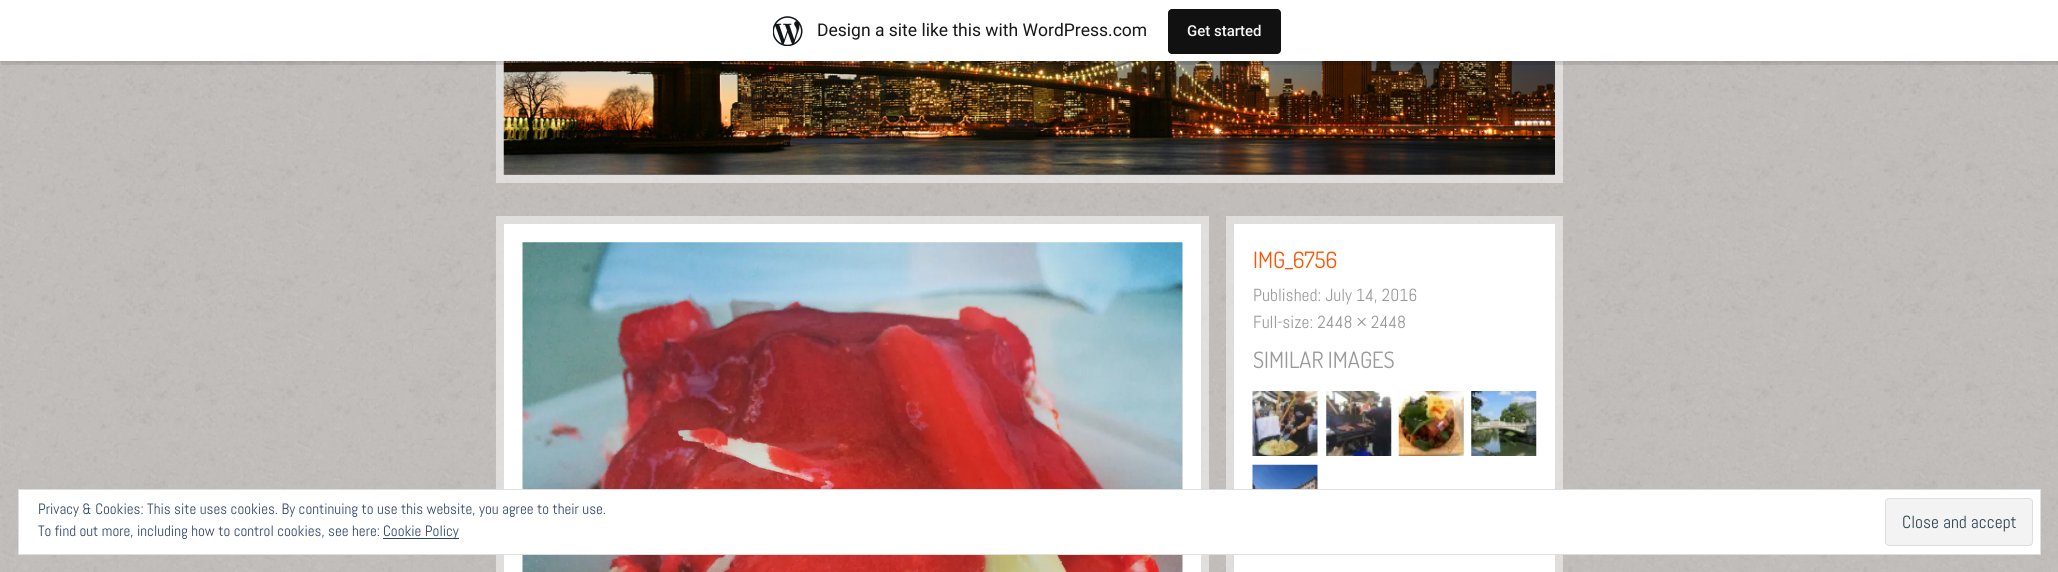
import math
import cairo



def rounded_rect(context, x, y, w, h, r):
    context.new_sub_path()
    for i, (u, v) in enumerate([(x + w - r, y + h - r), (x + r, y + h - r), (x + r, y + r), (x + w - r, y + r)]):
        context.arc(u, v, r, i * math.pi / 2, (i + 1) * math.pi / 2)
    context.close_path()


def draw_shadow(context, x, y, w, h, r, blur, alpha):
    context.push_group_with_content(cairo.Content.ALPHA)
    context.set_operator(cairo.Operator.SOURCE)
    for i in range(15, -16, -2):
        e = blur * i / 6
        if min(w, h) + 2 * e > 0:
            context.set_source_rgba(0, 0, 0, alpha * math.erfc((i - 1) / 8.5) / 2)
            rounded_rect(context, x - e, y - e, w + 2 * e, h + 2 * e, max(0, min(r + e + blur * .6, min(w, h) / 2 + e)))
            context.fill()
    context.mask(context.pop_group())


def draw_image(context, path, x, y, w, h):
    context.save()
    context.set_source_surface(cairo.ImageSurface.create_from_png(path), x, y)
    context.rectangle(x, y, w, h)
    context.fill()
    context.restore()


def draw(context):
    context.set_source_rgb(198 / 255, 194 / 255, 192 / 255)
    context.paint()
    draw_image(context, "images/1.png", 0, 61, 2058, 511)
    context.rectangle(500, -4, 1059, 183)
    context.set_source_rgba(1, 1, 1, 0.5)
    context.set_line_width(8)
    context.stroke()
    draw_image(context, "images/3.png", 503, 61, 1052, 114)
    context.set_source_rgb(0, 0, 0)
    draw_shadow(context, 0, 1, 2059, 62, 0, 1, 0.05)
    context.set_source_rgba(0, 0, 0, 0.08)
    context.new_path()
    context.move_to(1, 61)
    context.line_to(1, 65)
    context.line_to(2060, 65)
    context.line_to(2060, 4)
    context.line_to(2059, 4)
    context.line_to(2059, 61)
    context.close_path()
    context.fill()
    context.set_source_rgb(1, 1, 1)
    context.rectangle(0, 0, 2058, 61)
    context.fill()
    draw_image(context, "images/2.png", 773, 16, 30, 30)
    context.set_source_rgb(17 / 255, 17 / 255, 17 / 255)
    rounded_rect(context, 1168, 9, 113, 45, 4)
    context.fill()
    context.set_source_rgb(1, 1, 1)
    context.rectangle(504, 224, 697, 348)
    context.fill()
    context.rectangle(500, 220, 705, 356)
    context.set_source_rgba(1, 1, 1, 0.5)
    context.stroke()
    draw_image(context, "images/4.png", 522, 242, 661, 330)
    context.set_source_rgb(1, 1, 1)
    context.rectangle(1234, 224, 321, 348)
    context.fill()
    context.rectangle(1230, 220, 329, 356)
    context.set_source_rgba(1, 1, 1, 0.5)
    context.stroke()
    draw_image(context, "images/5.png", 1252, 391, 66, 65)
    draw_image(context, "images/6.png", 1326, 391, 66, 65)
    draw_image(context, "images/7.png", 1398, 391, 66, 65)
    draw_image(context, "images/8.png", 1471, 391, 66, 65)
    draw_image(context, "images/9.png", 1252, 464, 66, 25)
    context.set_source_rgb(1, 1, 1)
    context.rectangle(18.5, 489.5, 2022, 65)
    context.fill_preserve()
    context.set_source_rgb(222 / 255, 222 / 255, 222 / 255)
    context.set_line_width(1)
    context.stroke()
    context.set_source_rgb(46 / 255, 68 / 255, 103 / 255)
    context.rectangle(383, 538, 76, 1)
    context.fill()
    context.set_source_rgb(243 / 255, 243 / 255, 243 / 255)
    rounded_rect(context, 1885.5, 498.5, 147, 47, 3.5)
    context.fill_preserve()
    context.set_source_rgb(222 / 255, 222 / 255, 222 / 255)
    context.stroke()
    context.select_font_face("Roboto")
    context.set_font_size(17.5)
    context.set_source_rgb(23 / 255, 23 / 255, 23 / 255)
    context.move_to(817, 36)
    context.show_text("Design a site like this with WordPress.com")
    context.select_font_face("Roboto Medium")
    context.set_font_size(15)
    context.set_source_rgb(246 / 255, 247 / 255, 247 / 255)
    context.move_to(1187, 36)
    context.show_text("Get started")
    context.select_font_face("Dosis")
    context.set_font_size(22.5)
    context.set_source_rgb(252 / 255, 86 / 255, 5 / 255)
    context.move_to(1253, 268)
    context.show_text("IMG_6756")
    context.select_font_face("Abel")
    context.set_font_size(17.5)
    context.set_source_rgb(153 / 255, 153 / 255, 153 / 255)
    context.move_to(1253, 301)
    context.show_text("Published: July 14, 2016")
    context.move_to(1253, 328)
    context.show_text("Full-size: 2448 × 2448")
    context.select_font_face("Dosis")
    context.set_font_size(22.5)
    context.move_to(1253, 368)
    context.show_text("SIMILAR IMAGES")
    context.select_font_face("Abel")
    context.set_font_size(15)
    context.set_source_rgb(46 / 255, 68 / 255, 103 / 255)
    context.move_to(38, 514)
    context.show_text("Privacy & Cookies: This site uses cookies. By continuing to use this website, you agree to their use.")
    context.move_to(38, 536)
    context.show_text("To find out more, including how to control cookies, see here:")
    context.move_to(383, 536)
    context.show_text("Cookie Policy")
    context.set_font_size(17.5)
    context.set_source_rgb(46 / 255, 68 / 255, 83 / 255)
    context.move_to(1902, 528)
    context.show_text("Close and accept")


surface = cairo.ImageSurface(cairo.Format.RGB24, 2058, 572)
context = cairo.Context(surface)
options = cairo.FontOptions()
options.set_hint_metrics(cairo.HintMetrics.OFF)
options.set_hint_style(cairo.HintStyle.NONE)
context.set_font_options(options)
context.set_miter_limit(4)
draw(context)
surface.write_to_png("out.png")
